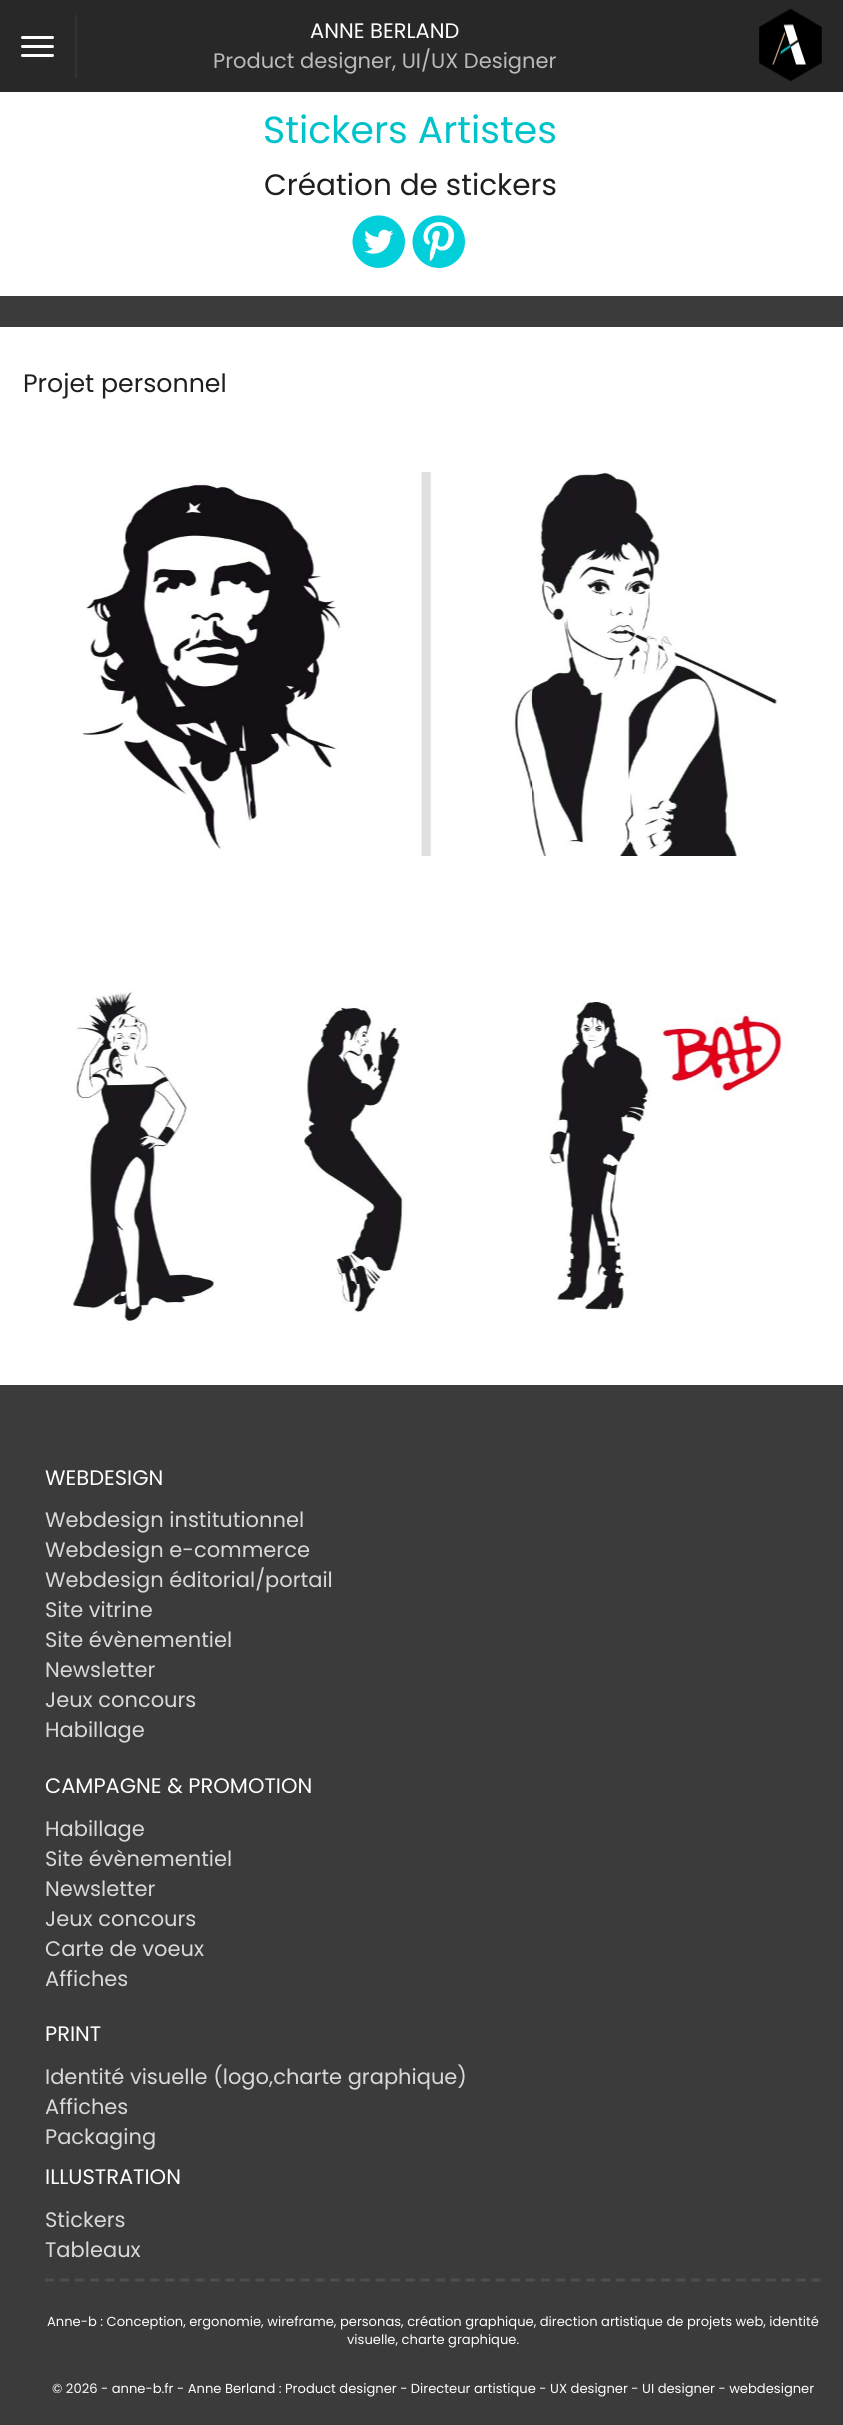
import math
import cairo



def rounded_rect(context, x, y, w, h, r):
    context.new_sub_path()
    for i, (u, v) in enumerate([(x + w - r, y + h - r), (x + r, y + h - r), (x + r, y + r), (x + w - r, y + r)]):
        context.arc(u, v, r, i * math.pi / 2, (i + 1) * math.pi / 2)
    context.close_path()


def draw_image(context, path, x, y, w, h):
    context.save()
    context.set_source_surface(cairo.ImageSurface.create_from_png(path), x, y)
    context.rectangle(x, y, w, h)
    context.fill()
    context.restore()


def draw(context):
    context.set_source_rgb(1, 1, 1)
    context.paint()
    context.set_source_rgb(40 / 255, 40 / 255, 40 / 255)
    context.rectangle(0, 0, 843, 92)
    context.fill()
    context.set_source_rgb(51 / 255, 51 / 255, 51 / 255)
    context.rectangle(75, 15, 2, 63)
    context.fill()
    context.set_source_rgb(1, 1, 1)
    rounded_rect(context, 21, 36, 33, 3, 1.5)
    context.fill()
    rounded_rect(context, 21, 45, 33, 3, 1.5)
    context.fill()
    rounded_rect(context, 21, 54, 33, 3, 1.5)
    context.fill()
    draw_image(context, "images/1.png", 759, 8, 63, 74)
    draw_image(context, "images/2.png", 352, 215, 53, 53)
    draw_image(context, "images/3.png", 412, 215, 53, 53)
    context.set_source_rgb(59 / 255, 59 / 255, 59 / 255)
    context.rectangle(0, 296, 843, 31)
    context.fill()
    draw_image(context, "images/4.png", 82, 472, 696, 384)
    draw_image(context, "images/5.png", 71, 991, 717, 333)
    context.rectangle(0, 1385, 843, 1040)
    context.fill()
    context.new_path()
    context.move_to(45, 2280)
    context.line_to(820.5, 2280)
    context.set_source_rgb(78 / 255, 78 / 255, 78 / 255)
    context.set_line_width(3)
    context.set_dash([9, 6.03])
    context.stroke()
    context.select_font_face("Poppins")
    context.set_font_size(21)
    context.set_source_rgb(1, 1, 1)
    context.move_to(310, 38)
    context.show_text("ANNE BERLAND")
    context.set_source_rgb(188 / 255, 187 / 255, 187 / 255)
    context.move_to(213, 68)
    context.show_text("Product designer, UI/UX Designer")
    context.set_font_size(37.75)
    context.set_source_rgb(0, 194 / 255, 203 / 255)
    context.move_to(263, 143)
    context.show_text("Stickers Artistes")
    context.set_font_size(29.5)
    context.set_source_rgb(31 / 255, 31 / 255, 31 / 255)
    context.move_to(264, 195)
    context.show_text("Création de stickers")
    context.set_font_size(25.25)
    context.move_to(23, 392)
    context.show_text("Projet personnel")
    context.set_font_size(21)
    context.set_source_rgb(1, 1, 1)
    context.move_to(45, 1485)
    context.show_text("WEBDESIGN")
    context.set_source_rgb(217 / 255, 217 / 255, 217 / 255)
    context.move_to(45, 1527)
    context.show_text("Webdesign institutionnel")
    context.move_to(45, 1557)
    context.show_text("Webdesign e-commerce")
    context.move_to(45, 1587)
    context.show_text("Webdesign éditorial/portail")
    context.move_to(45, 1617)
    context.show_text("Site vitrine")
    context.move_to(45, 1647)
    context.show_text("Site évènementiel")
    context.move_to(45, 1677)
    context.show_text("Newsletter")
    context.move_to(45, 1707)
    context.show_text("Jeux concours")
    context.move_to(45, 1737)
    context.show_text("Habillage")
    context.set_source_rgb(1, 1, 1)
    context.move_to(45, 1793)
    context.show_text("CAMPAGNE & PROMOTION")
    context.set_source_rgb(217 / 255, 217 / 255, 217 / 255)
    context.move_to(45, 1836)
    context.show_text("Habillage")
    context.move_to(45, 1866)
    context.show_text("Site évènementiel")
    context.move_to(45, 1896)
    context.show_text("Newsletter")
    context.move_to(45, 1926)
    context.show_text("Jeux concours")
    context.move_to(45, 1956)
    context.show_text("Carte de voeux")
    context.move_to(45, 1986)
    context.show_text("Affiches")
    context.set_source_rgb(1, 1, 1)
    context.move_to(45, 2041)
    context.show_text("PRINT")
    context.set_source_rgb(217 / 255, 217 / 255, 217 / 255)
    context.move_to(45, 2084)
    context.show_text("Identité visuelle (logo,charte graphique)")
    context.move_to(45, 2114)
    context.show_text("Affiches")
    context.move_to(45, 2144)
    context.show_text("Packaging")
    context.set_source_rgb(1, 1, 1)
    context.move_to(45, 2184)
    context.show_text("ILLUSTRATION")
    context.set_source_rgb(217 / 255, 217 / 255, 217 / 255)
    context.move_to(45, 2227)
    context.show_text("Stickers")
    context.move_to(45, 2257)
    context.show_text("Tableaux")
    context.set_font_size(13.1)
    context.set_source_rgb(1, 1, 1)
    context.move_to(47, 2326)
    context.show_text("Anne-b : Conception, ergonomie, wireframe, personas, création graphique, direction artistique de projets web, identité")
    context.move_to(347, 2344)
    context.show_text("visuelle, charte graphique.")
    context.move_to(52, 2393)
    context.show_text("© 2026 - anne-b.fr - Anne Berland : Product designer - Directeur artistique - UX designer - UI designer - webdesigner")


surface = cairo.ImageSurface(cairo.Format.RGB24, 843, 2425)
context = cairo.Context(surface)
options = cairo.FontOptions()
options.set_hint_metrics(cairo.HintMetrics.OFF)
options.set_hint_style(cairo.HintStyle.NONE)
context.set_font_options(options)
context.set_miter_limit(4)
draw(context)
surface.write_to_png("out.png")
